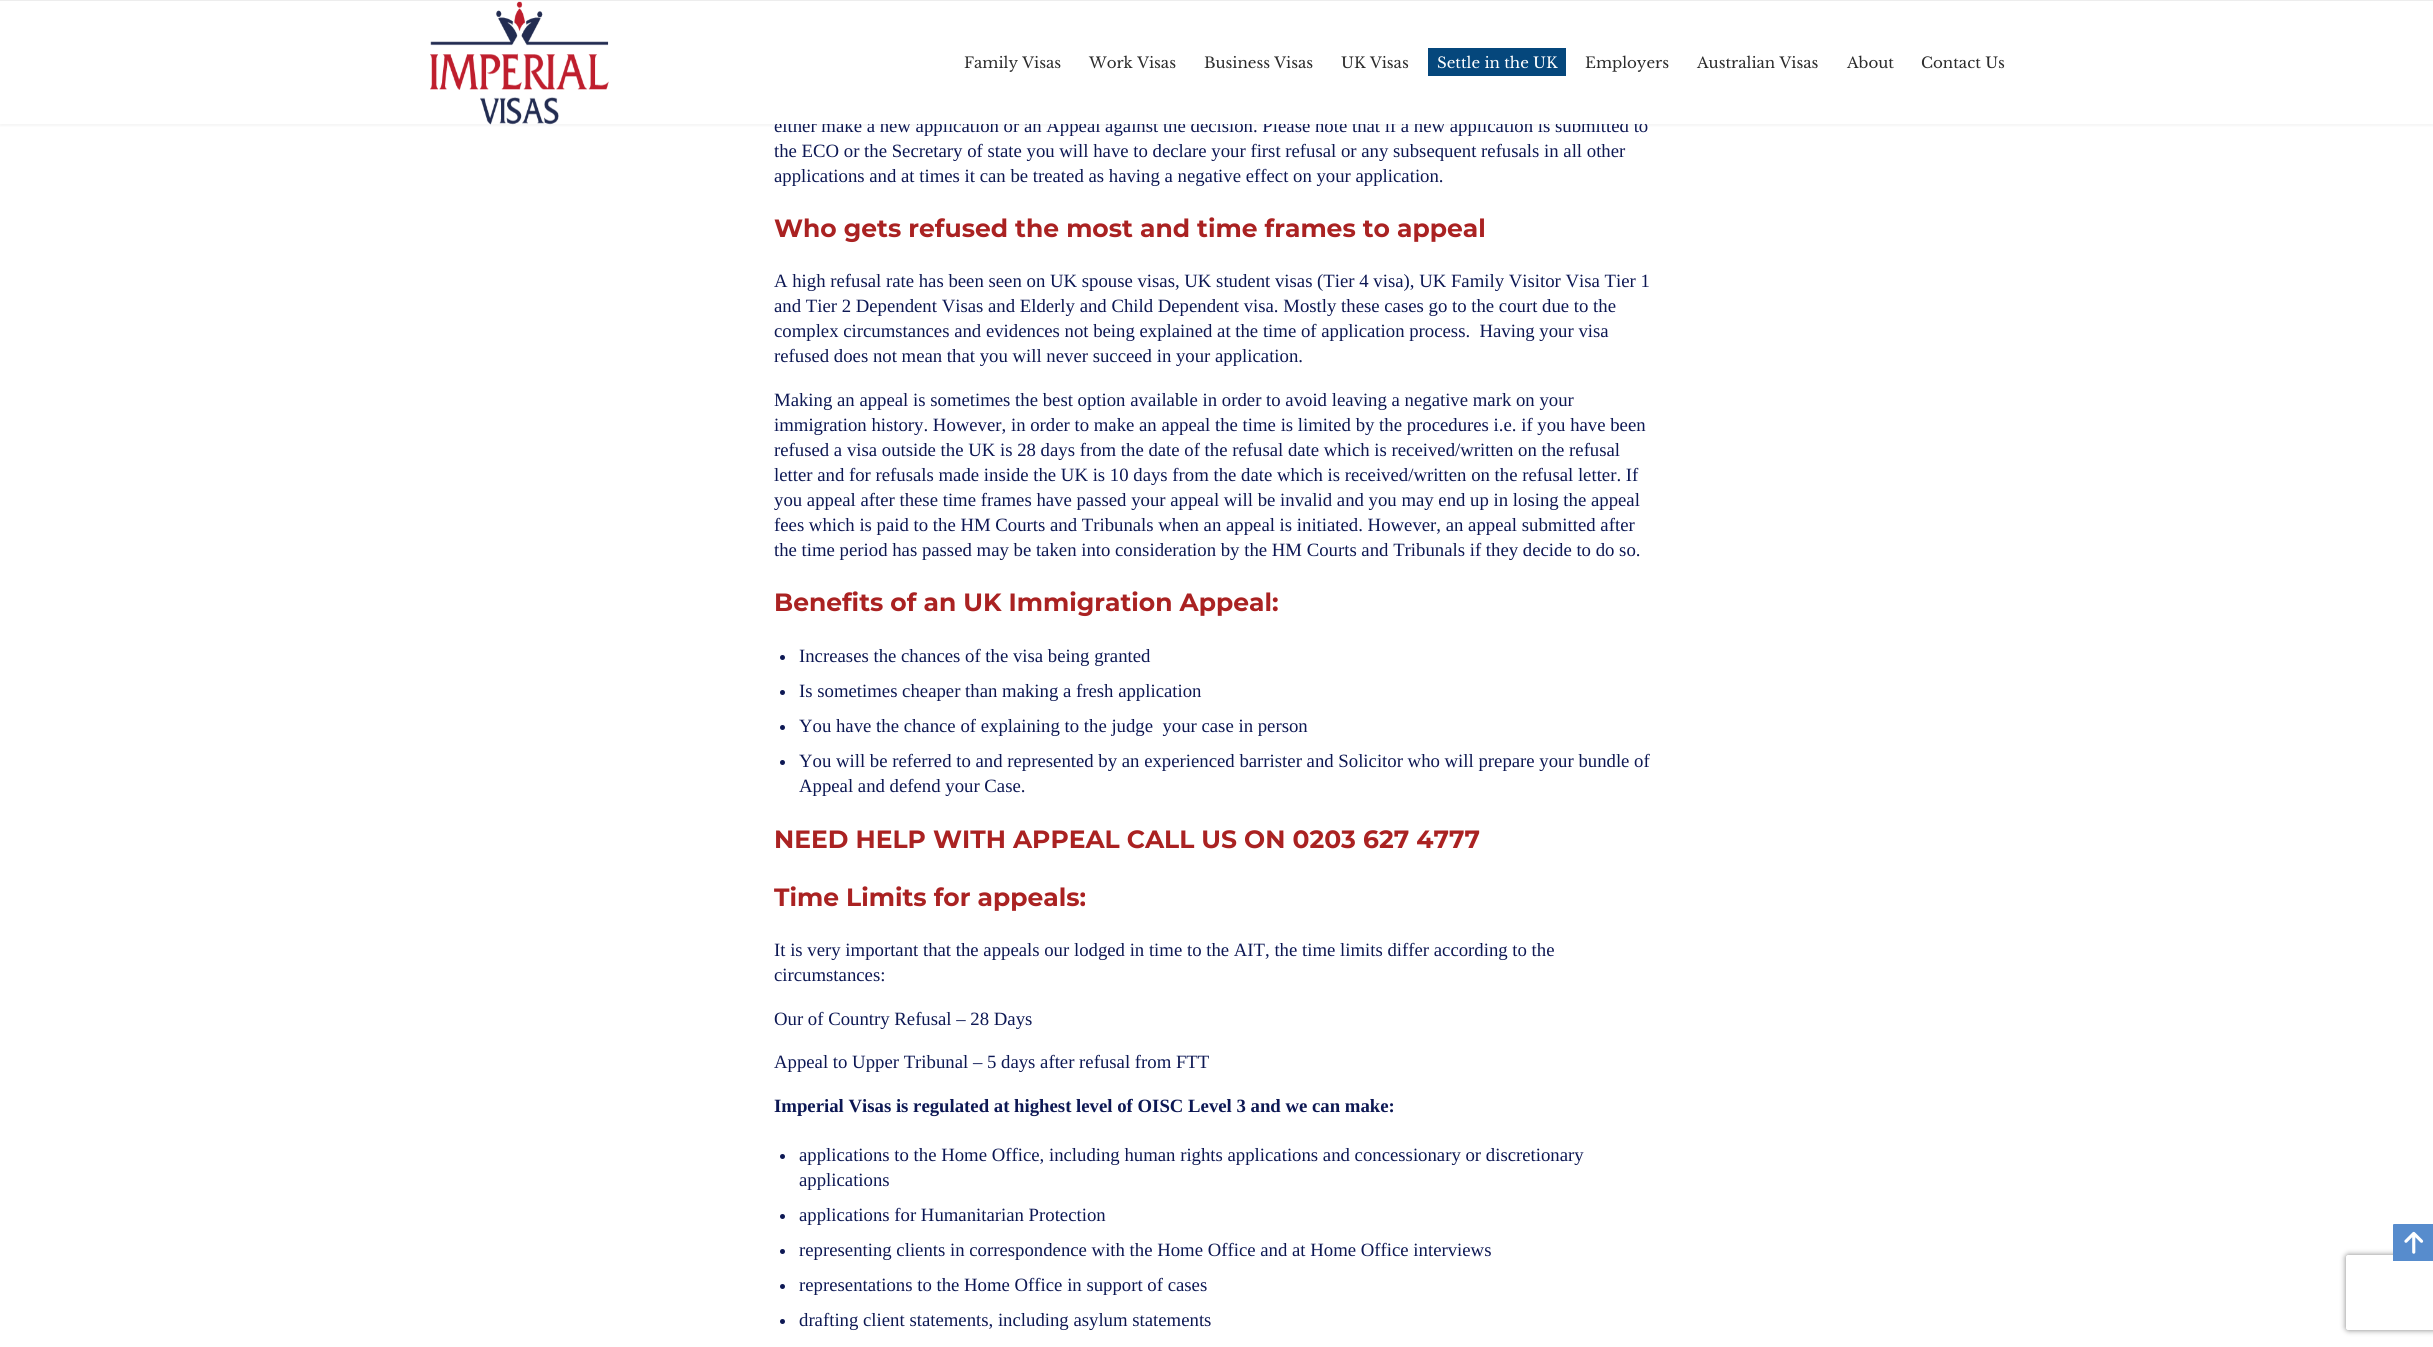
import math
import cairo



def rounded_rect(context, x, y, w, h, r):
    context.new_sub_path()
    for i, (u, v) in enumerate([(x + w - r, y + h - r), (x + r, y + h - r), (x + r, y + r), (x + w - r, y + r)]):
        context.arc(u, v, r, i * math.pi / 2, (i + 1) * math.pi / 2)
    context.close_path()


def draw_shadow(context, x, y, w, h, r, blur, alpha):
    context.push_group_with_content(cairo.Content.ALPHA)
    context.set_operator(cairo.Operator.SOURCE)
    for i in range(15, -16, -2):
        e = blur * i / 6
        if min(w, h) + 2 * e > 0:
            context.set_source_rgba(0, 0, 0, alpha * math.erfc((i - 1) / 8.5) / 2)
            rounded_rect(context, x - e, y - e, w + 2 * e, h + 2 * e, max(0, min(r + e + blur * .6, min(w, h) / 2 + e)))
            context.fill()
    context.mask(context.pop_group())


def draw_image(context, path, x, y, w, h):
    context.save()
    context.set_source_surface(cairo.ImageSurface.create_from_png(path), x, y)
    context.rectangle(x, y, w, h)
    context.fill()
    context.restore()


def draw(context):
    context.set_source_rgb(1, 1, 1)
    context.paint()
    context.set_source_rgb(0, 0, 0)
    draw_shadow(context, 0, -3, 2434, 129, 0, 1, 0.04)
    context.set_source_rgb(237 / 255, 237 / 255, 237 / 255)
    context.rectangle(0, 0, 2433, 1)
    context.fill()
    context.set_source_rgb(13 / 255, 24 / 255, 84 / 255)
    context.arc(782.5, 657.5, 2.5, 0, 2 * math.pi)
    context.fill()
    context.arc(782.5, 692.5, 2.5, 0, 2 * math.pi)
    context.fill()
    context.arc(782.5, 727.5, 2.5, 0, 2 * math.pi)
    context.fill()
    context.arc(782.5, 762.5, 2.5, 0, 2 * math.pi)
    context.fill()
    context.arc(782.5, 1156.5, 2.5, 0, 2 * math.pi)
    context.fill()
    context.arc(782.5, 1216.5, 2.5, 0, 2 * math.pi)
    context.fill()
    context.arc(782.5, 1251.5, 2.5, 0, 2 * math.pi)
    context.fill()
    context.arc(782.5, 1286.5, 2.5, 0, 2 * math.pi)
    context.fill()
    context.arc(782.5, 1321.5, 2.5, 0, 2 * math.pi)
    context.fill()
    context.save()
    context.set_fill_rule(cairo.FillRule.EVEN_ODD)
    context.new_path()
    context.move_to(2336, 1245)
    context.line_to(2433, 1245)
    context.line_to(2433, 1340)
    context.line_to(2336, 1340)
    context.close_path()
    context.move_to(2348.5, 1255)
    context.line_to(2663.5, 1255)
    context.curve_to(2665, 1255, 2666, 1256, 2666, 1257.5)
    context.line_to(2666, 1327.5)
    context.curve_to(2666, 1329, 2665, 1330, 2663.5, 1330)
    context.line_to(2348.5, 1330)
    context.curve_to(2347, 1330, 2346, 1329, 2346, 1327.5)
    context.line_to(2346, 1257.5)
    context.curve_to(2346, 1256, 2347, 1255, 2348.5, 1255)
    context.close_path()
    context.clip()
    context.set_source_rgb(128 / 255, 128 / 255, 128 / 255)
    draw_shadow(context, 2346, 1255, 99, 75, 2.5, 3, 1)
    context.restore()
    context.set_source_rgb(87 / 255, 140 / 255, 205 / 255)
    context.new_path()
    context.move_to(2394, 1224)
    context.line_to(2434, 1224)
    context.line_to(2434, 1261)
    context.line_to(2393, 1261)
    context.line_to(2393, 1225)
    context.curve_to(2393, 1224.5, 2393.5, 1224, 2394, 1224)
    context.close_path()
    context.fill()
    draw_image(context, "images/2.png", 2404, 1231, 20, 23)
    context.select_font_face("Liberation Serif")
    context.set_font_size(18.75)
    context.set_source_rgb(13 / 255, 24 / 255, 84 / 255)
    context.move_to(774, 132)
    context.show_text("either make a new application or an Appeal against the decision. Please note that if a new application is submitted to")
    context.set_source_rgb(1, 1, 1)
    context.rectangle(0, 1, 2433, 123)
    context.fill()
    context.select_font_face("Libre Baskerville")
    context.set_font_size(15)
    context.set_source_rgb(44 / 255, 44 / 255, 44 / 255)
    context.move_to(1921, 68)
    context.show_text("Contact Us")
    context.move_to(1847, 68)
    context.show_text("About")
    context.move_to(1697, 68)
    context.show_text("Australian Visas")
    context.move_to(1585, 68)
    context.show_text("Employers")
    context.set_source_rgb(5 / 255, 71 / 255, 124 / 255)
    context.rectangle(1428, 48, 138, 28)
    context.fill()
    context.set_source_rgb(1, 1, 1)
    context.move_to(1437, 68)
    context.show_text("Settle in the UK")
    context.set_source_rgb(44 / 255, 44 / 255, 44 / 255)
    context.move_to(1341, 68)
    context.show_text("UK Visas")
    context.move_to(1204, 68)
    context.show_text("Business Visas")
    context.move_to(1089, 68)
    context.show_text("Work Visas")
    context.move_to(964, 68)
    context.show_text("Family Visas")
    draw_image(context, "images/1.png", 430, 1, 179, 124)
    context.select_font_face("Liberation Serif")
    context.set_font_size(18.75)
    context.set_source_rgb(13 / 255, 24 / 255, 84 / 255)
    context.move_to(774, 157)
    context.show_text("the ECO or the Secretary of state you will have to declare your first refusal or any subsequent refusals in all other")
    context.move_to(774, 182)
    context.show_text("applications and at times it can be treated as having a negative effect on your application.")
    context.select_font_face("Montserrat", cairo.FontSlant.NORMAL, cairo.FontWeight.BOLD)
    context.set_font_size(25)
    context.set_source_rgb(170 / 255, 34 / 255, 34 / 255)
    context.move_to(774, 237)
    context.show_text("Who gets refused the most and time frames to appeal")
    context.select_font_face("Liberation Serif")
    context.set_font_size(18.75)
    context.set_source_rgb(13 / 255, 24 / 255, 84 / 255)
    context.move_to(774, 287)
    context.show_text("A high refusal rate has been seen on UK spouse visas, UK student visas (Tier 4 visa), UK Family Visitor Visa Tier 1")
    context.move_to(774, 312)
    context.show_text("and Tier 2 Dependent Visas and Elderly and Child Dependent visa. Mostly these cases go to the court due to the")
    context.move_to(774, 337)
    context.show_text("complex circumstances and evidences not being explained at the time of application process.  Having your visa")
    context.move_to(774, 362)
    context.show_text("refused does not mean that you will never succeed in your application.")
    context.move_to(774, 406)
    context.show_text("Making an appeal is sometimes the best option available in order to avoid leaving a negative mark on your")
    context.move_to(774, 431)
    context.show_text("immigration history. However, in order to make an appeal the time is limited by the procedures i.e. if you have been")
    context.move_to(774, 456)
    context.show_text("refused a visa outside the UK is 28 days from the date of the refusal date which is received/written on the refusal")
    context.move_to(774, 481)
    context.show_text("letter and for refusals made inside the UK is 10 days from the date which is received/written on the refusal letter. If")
    context.move_to(774, 506)
    context.show_text("you appeal after these time frames have passed your appeal will be invalid and you may end up in losing the appeal")
    context.move_to(774, 531)
    context.show_text("fees which is paid to the HM Courts and Tribunals when an appeal is initiated. However, an appeal submitted after")
    context.move_to(774, 556)
    context.show_text("the time period has passed may be taken into consideration by the HM Courts and Tribunals if they decide to do so.")
    context.select_font_face("Montserrat", cairo.FontSlant.NORMAL, cairo.FontWeight.BOLD)
    context.set_font_size(25)
    context.set_source_rgb(170 / 255, 34 / 255, 34 / 255)
    context.move_to(774, 611)
    context.show_text("Benefits of an UK Immigration Appeal:")
    context.select_font_face("Liberation Serif")
    context.set_font_size(18.75)
    context.set_source_rgb(13 / 255, 24 / 255, 84 / 255)
    context.move_to(799, 662)
    context.show_text("Increases the chances of the visa being granted")
    context.move_to(799, 697)
    context.show_text("Is sometimes cheaper than making a fresh application")
    context.move_to(799, 732)
    context.show_text("You have the chance of explaining to the judge  your case in person")
    context.move_to(799, 767)
    context.show_text("You will be referred to and represented by an experienced barrister and Solicitor who will prepare your bundle of")
    context.move_to(799, 792)
    context.show_text("Appeal and defend your Case.")
    context.select_font_face("Montserrat", cairo.FontSlant.NORMAL, cairo.FontWeight.BOLD)
    context.set_font_size(25)
    context.set_source_rgb(170 / 255, 34 / 255, 34 / 255)
    context.move_to(774, 848)
    context.show_text("NEED HELP WITH APPEAL CALL US ON 0203 627 4777")
    context.move_to(774, 906)
    context.show_text("Time Limits for appeals:")
    context.select_font_face("Liberation Serif")
    context.set_font_size(18.75)
    context.set_source_rgb(13 / 255, 24 / 255, 84 / 255)
    context.move_to(774, 956)
    context.show_text("It is very important that the appeals our lodged in time to the AIT, the time limits differ according to the")
    context.move_to(774, 981)
    context.show_text("circumstances:")
    context.move_to(774, 1025)
    context.show_text("Our of Country Refusal – 28 Days")
    context.move_to(774, 1068)
    context.show_text("Appeal to Upper Tribunal – 5 days after refusal from FTT")
    context.select_font_face("Liberation Serif", cairo.FontSlant.NORMAL, cairo.FontWeight.BOLD)
    context.move_to(774, 1112)
    context.show_text("Imperial Visas is regulated at highest level of OISC Level 3 and we can make:")
    context.select_font_face("Liberation Serif")
    context.move_to(799, 1161)
    context.show_text("applications to the Home Office, including human rights applications and concessionary or discretionary")
    context.move_to(799, 1186)
    context.show_text("applications")
    context.move_to(799, 1221)
    context.show_text("applications for Humanitarian Protection")
    context.move_to(799, 1256)
    context.show_text("representing clients in correspondence with the Home Office and at Home Office interviews")
    context.move_to(799, 1291)
    context.show_text("representations to the Home Office in support of cases")
    context.move_to(799, 1326)
    context.show_text("drafting client statements, including asylum statements")


surface = cairo.ImageSurface(cairo.Format.RGB24, 2433, 1347)
context = cairo.Context(surface)
options = cairo.FontOptions()
options.set_hint_metrics(cairo.HintMetrics.OFF)
options.set_hint_style(cairo.HintStyle.NONE)
context.set_font_options(options)
context.set_miter_limit(4)
draw(context)
surface.write_to_png("out.png")
